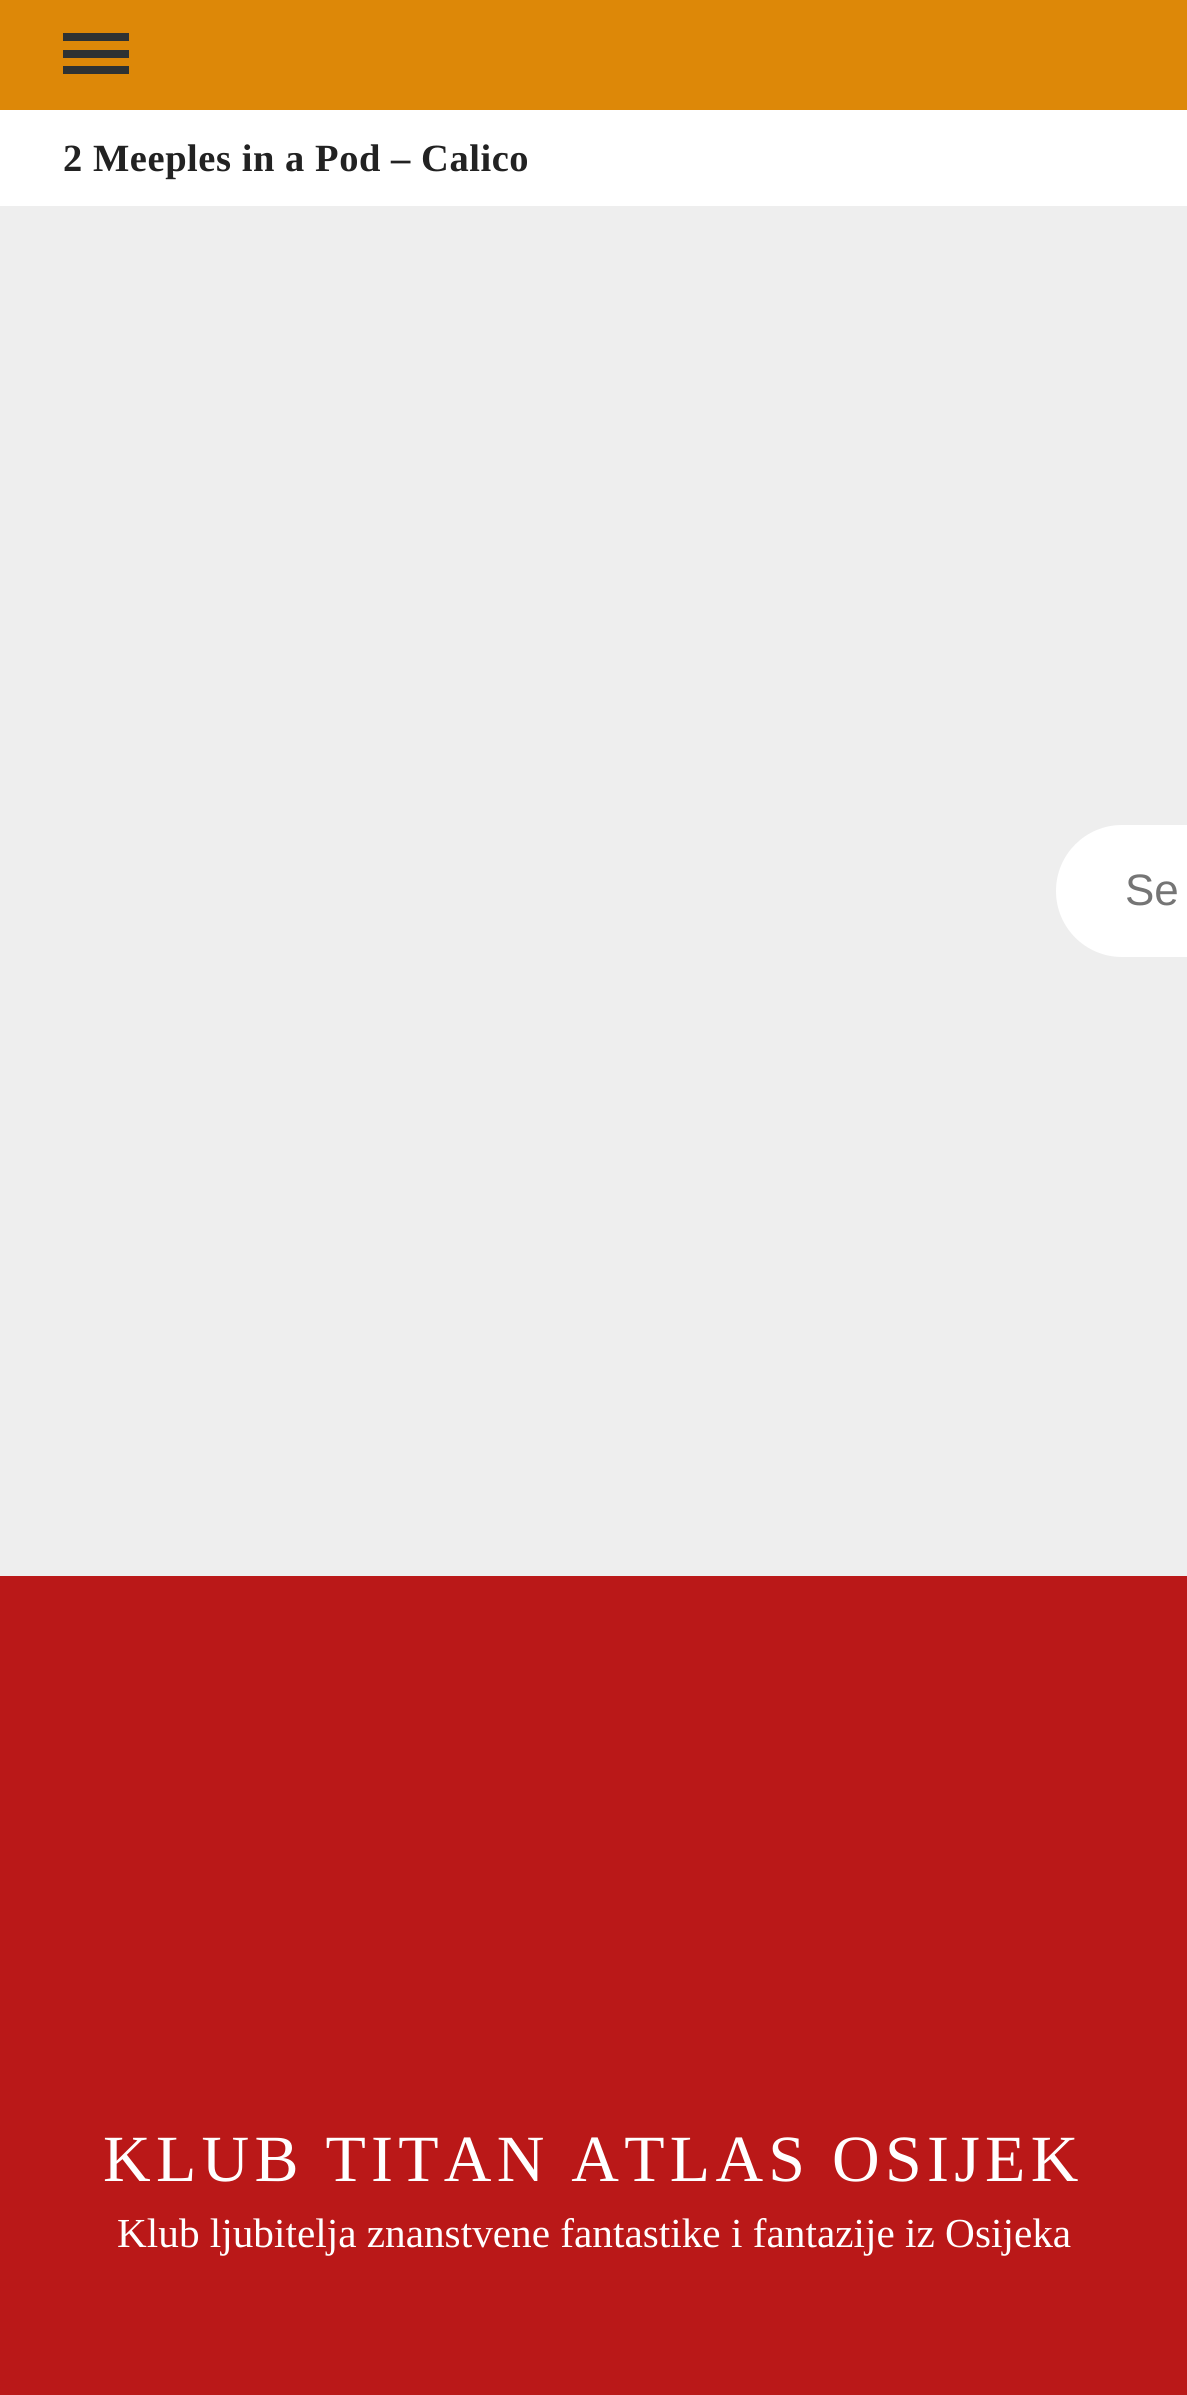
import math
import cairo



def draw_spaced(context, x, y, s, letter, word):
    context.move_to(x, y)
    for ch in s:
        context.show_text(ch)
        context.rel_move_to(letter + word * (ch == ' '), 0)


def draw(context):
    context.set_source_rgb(221 / 255, 136 / 255, 8 / 255)
    context.paint()
    context.set_source_rgb(46 / 255, 50 / 255, 51 / 255)
    context.rectangle(63, 50, 66, 8)
    context.fill()
    context.rectangle(63, 33, 66, 8)
    context.fill()
    context.rectangle(63, 66, 66, 8)
    context.fill()
    context.set_source_rgb(1, 1, 1)
    context.rectangle(0, 110, 1187, 96)
    context.fill()
    context.set_source_rgb(238 / 255, 238 / 255, 238 / 255)
    context.rectangle(0, 206, 1187, 1370)
    context.fill()
    context.set_source_rgb(1, 1, 1)
    context.new_path()
    context.move_to(1122, 825)
    context.line_to(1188, 825)
    context.line_to(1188, 957)
    context.line_to(1122, 957)
    context.curve_to(1085.5, 957, 1056, 927.5, 1056, 891)
    context.curve_to(1056, 854.5, 1085.5, 825, 1122, 825)
    context.close_path()
    context.fill()
    context.set_source_rgb(186 / 255, 24 / 255, 24 / 255)
    context.rectangle(0, 1576, 1187, 819)
    context.fill()
    context.select_font_face("Liberation Serif", cairo.FontSlant.NORMAL, cairo.FontWeight.BOLD)
    context.set_font_size(38.5)
    context.set_source_rgb(34 / 255, 34 / 255, 34 / 255)
    draw_spaced(context, 63, 171, "2 Meeples in a Pod – Calico", 0.55, 0)
    context.select_font_face("Liberation Sans")
    context.set_font_size(44)
    context.set_source_rgb(117 / 255, 117 / 255, 117 / 255)
    context.move_to(1125, 905)
    context.show_text("Se")
    context.select_font_face("Liberation Serif")
    context.set_font_size(66)
    context.set_source_rgb(1, 1, 1)
    draw_spaced(context, 103, 2181, "KLUB TITAN ATLAS OSIJEK", 5.25, 0)
    context.set_font_size(41.25)
    context.move_to(117, 2247)
    context.show_text("Klub ljubitelja znanstvene fantastike i fantazije iz Osijeka")


surface = cairo.ImageSurface(cairo.Format.RGB24, 1187, 2395)
context = cairo.Context(surface)
options = cairo.FontOptions()
options.set_hint_metrics(cairo.HintMetrics.OFF)
options.set_hint_style(cairo.HintStyle.NONE)
context.set_font_options(options)
context.set_miter_limit(4)
draw(context)
surface.write_to_png("out.png")
